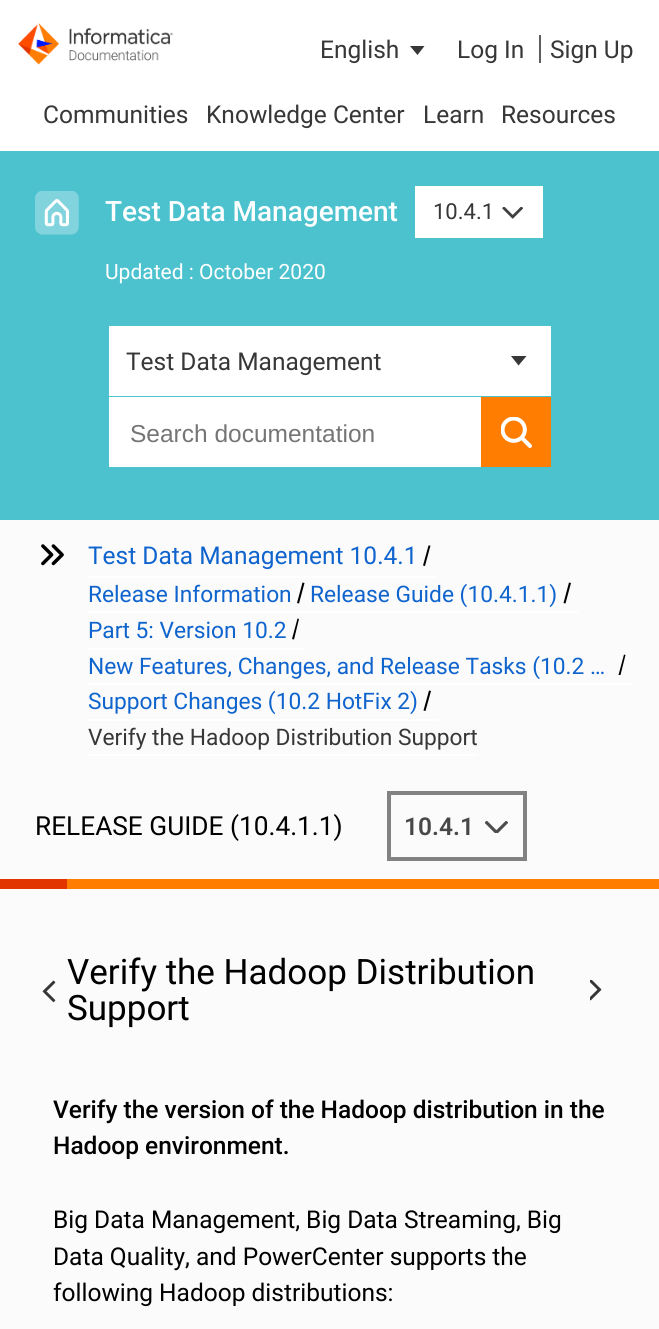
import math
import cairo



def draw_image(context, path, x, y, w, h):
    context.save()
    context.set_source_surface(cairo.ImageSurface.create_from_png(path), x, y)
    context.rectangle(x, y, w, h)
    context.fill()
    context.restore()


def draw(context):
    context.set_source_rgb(1, 1, 1)
    context.paint()
    draw_image(context, "images/1.png", 18, 23, 155, 42)
    context.set_source_rgb(55 / 255, 55 / 255, 55 / 255)
    context.new_path()
    context.move_to(424.5, 46)
    context.line_to(417.5, 55)
    context.line_to(410, 46)
    context.close_path()
    context.fill()
    context.set_source_rgb(93 / 255, 93 / 255, 93 / 255)
    context.rectangle(539, 35, 2, 28)
    context.fill()
    context.set_source_rgb(77 / 255, 194 / 255, 207 / 255)
    context.rectangle(0, 151, 659, 369)
    context.fill()
    draw_image(context, "images/2.png", 35, 191, 44, 44)
    context.set_source_rgb(1, 1, 1)
    context.rectangle(415, 186, 128, 52)
    context.fill()
    draw_image(context, "images/3.png", 502, 207, 21, 12)
    context.rectangle(109, 326, 442, 70)
    context.fill()
    context.set_source_rgb(55 / 255, 55 / 255, 55 / 255)
    context.new_path()
    context.move_to(526.5, 356)
    context.line_to(518.5, 365.5)
    context.line_to(511, 356)
    context.close_path()
    context.fill()
    context.set_source_rgb(1, 1, 1)
    context.rectangle(109, 397, 372, 70)
    context.fill()
    context.set_source_rgb(1, 125 / 255, 0)
    context.rectangle(481, 397, 70, 70)
    context.fill()
    draw_image(context, "images/4.png", 501, 417, 31, 31)
    context.set_source_rgb(251 / 255, 251 / 255, 251 / 255)
    context.rectangle(0, 520, 659, 809)
    context.fill()
    draw_image(context, "images/5.png", 41, 544, 23, 22)
    context.set_source_rgb(1, 1, 1)
    context.rectangle(88, 576, 348, 2)
    context.fill()
    context.set_source_rgb(0, 0, 0)
    context.new_path()
    context.move_to(428.5, 545.5)
    context.line_to(430.5, 545.5)
    context.line_to(425, 566)
    context.line_to(423, 565.5)
    context.close_path()
    context.fill()
    context.set_source_rgb(1, 1, 1)
    context.rectangle(88, 611, 490, 2)
    context.fill()
    context.set_source_rgb(0, 0, 0)
    context.new_path()
    context.move_to(302.5, 582.5)
    context.line_to(304.5, 583)
    context.line_to(299, 603.5)
    context.line_to(297, 603)
    context.close_path()
    context.fill()
    context.new_path()
    context.move_to(569, 582.5)
    context.line_to(571, 583)
    context.line_to(565.5, 603.5)
    context.line_to(563.5, 603)
    context.close_path()
    context.fill()
    context.set_source_rgb(1, 1, 1)
    context.rectangle(88, 648, 217, 2)
    context.fill()
    context.set_source_rgb(0, 0, 0)
    context.new_path()
    context.move_to(297.5, 618.5)
    context.line_to(299, 619)
    context.line_to(294, 639.5)
    context.line_to(292, 639)
    context.close_path()
    context.fill()
    context.set_source_rgb(1, 1, 1)
    context.rectangle(88, 683, 544, 2)
    context.fill()
    context.set_source_rgb(0, 0, 0)
    context.new_path()
    context.move_to(624, 654.5)
    context.line_to(625.5, 655)
    context.line_to(620.5, 675)
    context.line_to(618.5, 675)
    context.close_path()
    context.fill()
    context.set_source_rgb(1, 1, 1)
    context.rectangle(88, 719, 350, 2)
    context.fill()
    context.set_source_rgb(0, 0, 0)
    context.new_path()
    context.move_to(429, 690.5)
    context.line_to(431, 691)
    context.line_to(425.5, 711)
    context.line_to(423.5, 710.5)
    context.close_path()
    context.fill()
    context.set_source_rgb(1, 1, 1)
    context.rectangle(88, 754, 390, 2)
    context.fill()
    context.rectangle(389, 793, 136, 66)
    context.set_source_rgb(130 / 255, 130 / 255, 130 / 255)
    context.set_line_width(4)
    context.stroke()
    draw_image(context, "images/6.png", 485, 821, 23, 12)
    context.set_source_rgb(1, 125 / 255, 0)
    context.rectangle(67, 879, 592, 10)
    context.fill()
    context.set_source_rgb(226 / 255, 52 / 255, 0)
    context.rectangle(0, 879, 67, 10)
    context.fill()
    draw_image(context, "images/7.png", 42, 980, 14, 23)
    draw_image(context, "images/8.png", 590, 980, 12, 21)
    context.select_font_face("Roboto")
    context.set_font_size(24.5)
    context.set_source_rgb(55 / 255, 55 / 255, 55 / 255)
    context.move_to(320, 58)
    context.show_text("English")
    context.move_to(457, 58)
    context.show_text("Log In")
    context.move_to(550, 58)
    context.show_text("Sign Up")
    context.move_to(43, 123)
    context.show_text("Communities")
    context.move_to(206, 123)
    context.show_text("Knowledge Center")
    context.move_to(423, 123)
    context.show_text("Learn")
    context.move_to(501, 123)
    context.show_text("Resources")
    context.select_font_face("Roboto Medium")
    context.set_font_size(28)
    context.set_source_rgb(1, 1, 1)
    context.move_to(105, 221)
    context.show_text("Test Data Management")
    context.select_font_face("Roboto")
    context.set_font_size(22)
    context.set_source_rgb(55 / 255, 55 / 255, 55 / 255)
    context.move_to(433, 219)
    context.show_text("10.4.1")
    context.set_font_size(21)
    context.set_source_rgb(1, 1, 1)
    context.move_to(105, 279)
    context.show_text("Updated : October 2020")
    context.set_font_size(24.5)
    context.set_source_rgb(55 / 255, 55 / 255, 55 / 255)
    context.move_to(126, 370)
    context.show_text("Test Data Management")
    context.select_font_face("Liberation Sans")
    context.set_source_rgb(117 / 255, 117 / 255, 117 / 255)
    context.move_to(130, 442)
    context.show_text("Search documentation")
    context.select_font_face("Roboto")
    context.set_source_rgb(15 / 255, 100 / 255, 205 / 255)
    context.move_to(88, 564)
    context.show_text("Test Data Management 10.4.1")
    context.set_font_size(22.75)
    context.move_to(88, 602)
    context.show_text("Release Information")
    context.move_to(310, 602)
    context.show_text("Release Guide (10.4.1.1)")
    context.move_to(88, 638)
    context.show_text("Part 5: Version 10.2")
    context.move_to(88, 674)
    context.show_text("New Features, Changes, and Release Tasks (10.2 …")
    context.move_to(88, 709)
    context.show_text("Support Changes (10.2 HotFix 2)")
    context.set_source_rgb(55 / 255, 55 / 255, 55 / 255)
    context.move_to(88, 745)
    context.show_text("Verify the Hadoop Distribution Support")
    context.set_font_size(26.25)
    context.set_source_rgb(0, 0, 0)
    context.move_to(35, 835)
    context.show_text("RELEASE GUIDE (10.4.1.1)")
    context.select_font_face("Roboto SemiBold")
    context.set_font_size(24.5)
    context.set_source_rgb(72 / 255, 72 / 255, 72 / 255)
    context.move_to(404, 835)
    context.show_text("10.4.1")
    context.select_font_face("Roboto")
    context.set_font_size(35)
    context.set_source_rgb(0, 0, 0)
    context.move_to(67, 984)
    context.show_text("Verify the Hadoop Distribution")
    context.move_to(67, 1020)
    context.show_text("Support")
    context.select_font_face("Roboto Medium")
    context.set_font_size(24.5)
    context.move_to(53, 1118)
    context.show_text("Verify the version of the Hadoop distribution in the")
    context.move_to(53, 1154)
    context.show_text("Hadoop environment.")
    context.select_font_face("Roboto")
    context.move_to(53, 1228)
    context.show_text("Big Data Management, Big Data Streaming, Big")
    context.move_to(53, 1265)
    context.show_text("Data Quality, and PowerCenter supports the")
    context.move_to(53, 1301)
    context.show_text("following Hadoop distributions:")


surface = cairo.ImageSurface(cairo.Format.RGB24, 659, 1329)
context = cairo.Context(surface)
options = cairo.FontOptions()
options.set_hint_metrics(cairo.HintMetrics.OFF)
options.set_hint_style(cairo.HintStyle.NONE)
context.set_font_options(options)
context.set_miter_limit(4)
draw(context)
surface.write_to_png("out.png")
